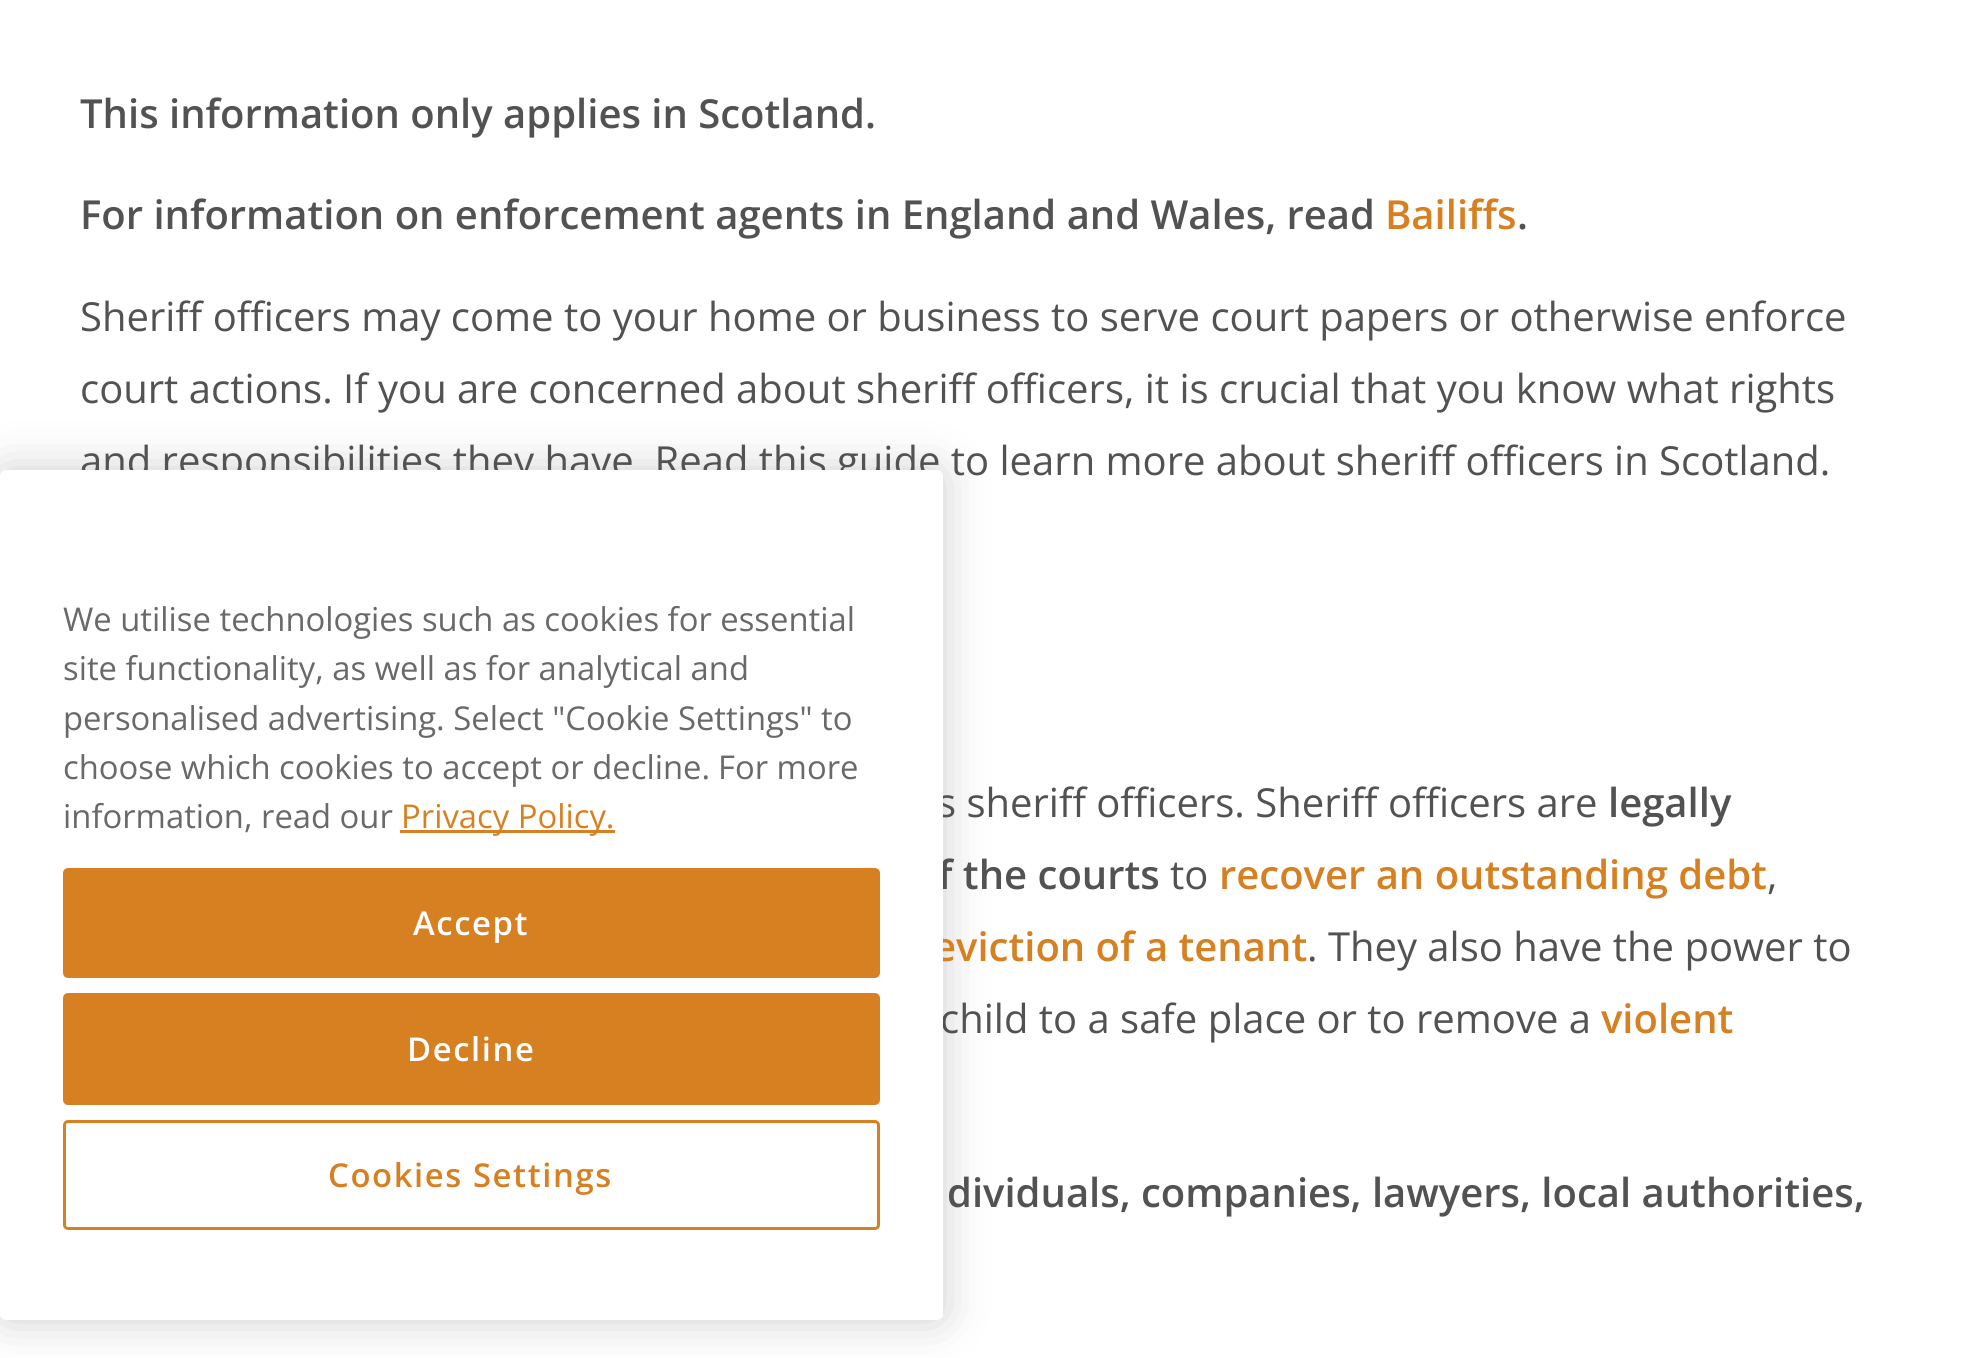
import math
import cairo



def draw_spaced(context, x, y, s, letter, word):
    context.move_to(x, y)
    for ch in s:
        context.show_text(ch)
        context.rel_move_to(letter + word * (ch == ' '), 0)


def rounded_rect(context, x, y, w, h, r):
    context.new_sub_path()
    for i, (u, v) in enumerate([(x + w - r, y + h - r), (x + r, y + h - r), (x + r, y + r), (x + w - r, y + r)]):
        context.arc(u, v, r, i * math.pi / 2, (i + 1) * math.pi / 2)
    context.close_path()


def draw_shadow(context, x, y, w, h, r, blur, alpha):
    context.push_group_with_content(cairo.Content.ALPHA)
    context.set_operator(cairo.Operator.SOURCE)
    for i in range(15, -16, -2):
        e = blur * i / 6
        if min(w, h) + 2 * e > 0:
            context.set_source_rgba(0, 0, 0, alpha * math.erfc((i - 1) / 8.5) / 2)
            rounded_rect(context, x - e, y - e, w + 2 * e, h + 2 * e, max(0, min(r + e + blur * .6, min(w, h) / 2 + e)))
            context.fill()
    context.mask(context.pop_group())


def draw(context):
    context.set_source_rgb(1, 1, 1)
    context.paint()
    context.set_source_rgb(0, 0, 0)
    draw_shadow(context, 0, 470, 943, 850, 6, 22.5, 0.2)
    context.select_font_face("Open Sans SemiBold")
    context.set_font_size(40)
    context.set_source_rgb(82 / 255, 82 / 255, 82 / 255)
    context.move_to(80, 128)
    context.show_text("This information only applies in Scotland.")
    context.move_to(80, 229)
    context.show_text("For information on enforcement agents in England and Wales, read")
    context.set_source_rgb(214 / 255, 128 / 255, 33 / 255)
    context.move_to(1385, 229)
    context.show_text("Bailiffs")
    context.set_source_rgb(82 / 255, 82 / 255, 82 / 255)
    context.move_to(1517, 229)
    context.show_text(".")
    context.select_font_face("Open Sans")
    context.move_to(80, 331)
    context.show_text("Sheriff officers may come to your home or business to serve court papers or otherwise enforce")
    context.move_to(80, 403)
    context.show_text("court actions. If you are concerned about sheriff officers, it is crucial that you know what rights")
    context.move_to(80, 475)
    context.show_text("and responsibilities they have. Read this guide to learn more about sheriff officers in Scotland.")
    context.move_to(937, 817)
    context.show_text("s sheriff officers. Sheriff officers are")
    context.select_font_face("Open Sans SemiBold")
    context.move_to(1608, 817)
    context.show_text("legally")
    context.move_to(938, 889)
    context.show_text("f the courts")
    context.select_font_face("Open Sans")
    context.move_to(1170, 889)
    context.show_text("to")
    context.select_font_face("Open Sans SemiBold")
    context.set_source_rgb(214 / 255, 128 / 255, 33 / 255)
    context.move_to(1219, 889)
    context.show_text("recover an outstanding debt")
    context.select_font_face("Open Sans")
    context.set_source_rgb(82 / 255, 82 / 255, 82 / 255)
    context.move_to(1767, 889)
    context.show_text(",")
    context.select_font_face("Open Sans SemiBold")
    context.set_source_rgb(214 / 255, 128 / 255, 33 / 255)
    context.move_to(933, 961)
    context.show_text("eviction of a tenant")
    context.select_font_face("Open Sans")
    context.set_source_rgb(82 / 255, 82 / 255, 82 / 255)
    context.move_to(1307, 961)
    context.show_text(". They also have the power to")
    context.move_to(940, 1033)
    context.show_text("child to a safe place or to remove a")
    context.select_font_face("Open Sans SemiBold")
    context.set_source_rgb(214 / 255, 128 / 255, 33 / 255)
    context.move_to(1601, 1033)
    context.show_text("violent")
    context.set_source_rgb(82 / 255, 82 / 255, 82 / 255)
    context.move_to(947, 1207)
    context.show_text("dividuals, companies, lawyers, local authorities,")
    context.set_source_rgb(1, 1, 1)
    rounded_rect(context, 0, 470, 943, 850, 6)
    context.fill()
    context.select_font_face("Open Sans")
    context.set_font_size(32.8)
    context.set_source_rgb(105 / 255, 105 / 255, 105 / 255)
    context.move_to(63, 631)
    context.show_text("We utilise technologies such as cookies for essential")
    context.move_to(63, 680)
    context.show_text("site functionality, as well as for analytical and")
    context.move_to(63, 730)
    context.show_text("personalised advertising. Select \"Cookie Settings\" to")
    context.move_to(63, 779)
    context.show_text("choose which cookies to accept or decline.")
    context.move_to(718, 779)
    context.show_text("For more")
    context.move_to(63, 828)
    context.show_text("information, read our")
    context.set_source_rgb(214 / 255, 128 / 255, 33 / 255)
    context.rectangle(400, 830, 215, 3)
    context.fill()
    context.move_to(401, 828)
    context.show_text("Privacy Policy.")
    rounded_rect(context, 64.5, 869.5, 814, 107, 3.5)
    context.fill_preserve()
    context.set_line_width(3)
    context.stroke()
    context.select_font_face("Open Sans SemiBold")
    context.set_source_rgb(1, 1, 1)
    draw_spaced(context, 413, 935, "Accept", 1.6, 0)
    context.set_source_rgb(214 / 255, 128 / 255, 33 / 255)
    rounded_rect(context, 64.5, 994.5, 814, 109, 3.5)
    context.fill_preserve()
    context.stroke()
    context.set_source_rgb(1, 1, 1)
    draw_spaced(context, 407, 1061, "Decline", 1.6, 0)
    rounded_rect(context, 64.5, 1121.5, 814, 107, 3.5)
    context.set_source_rgb(214 / 255, 128 / 255, 33 / 255)
    context.stroke()
    draw_spaced(context, 328, 1187, "Cookies Settings", 1.6, 0)


surface = cairo.ImageSurface(cairo.Format.RGB24, 1961, 1358)
context = cairo.Context(surface)
options = cairo.FontOptions()
options.set_hint_metrics(cairo.HintMetrics.OFF)
options.set_hint_style(cairo.HintStyle.NONE)
context.set_font_options(options)
context.set_miter_limit(4)
draw(context)
surface.write_to_png("out.png")
